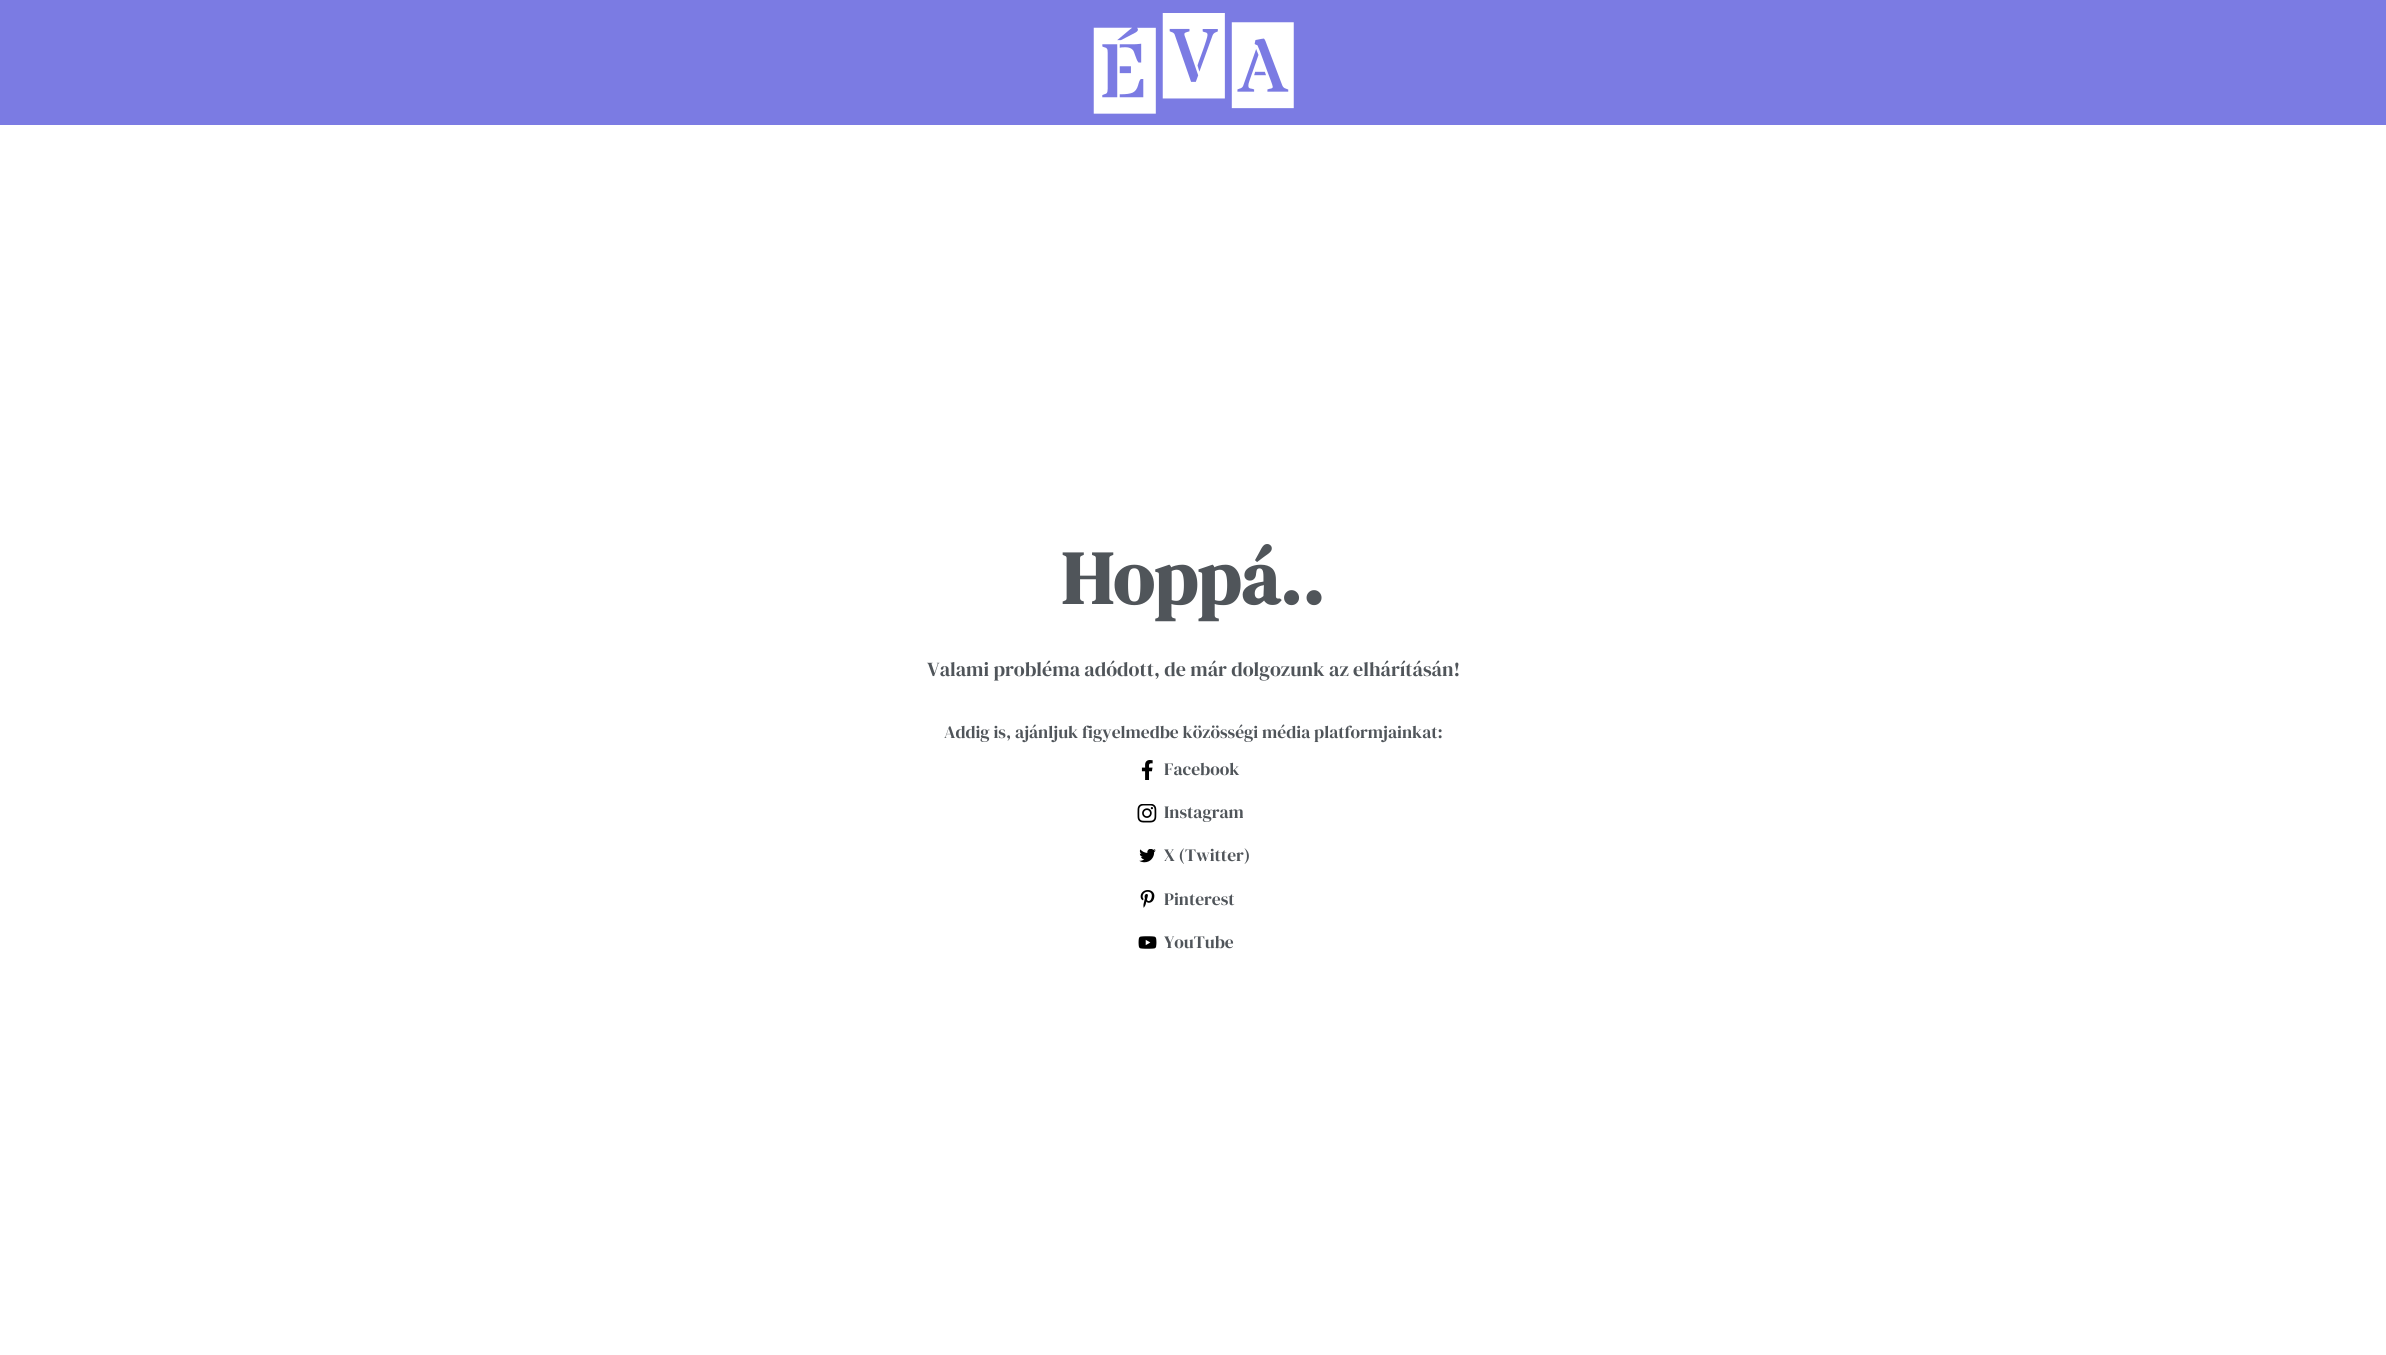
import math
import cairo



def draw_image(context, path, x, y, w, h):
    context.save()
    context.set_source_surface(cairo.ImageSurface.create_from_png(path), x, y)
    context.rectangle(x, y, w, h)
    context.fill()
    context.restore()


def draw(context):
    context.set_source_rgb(1, 1, 1)
    context.paint()
    context.set_source_rgb(123 / 255, 123 / 255, 227 / 255)
    context.rectangle(0, 0, 2386, 125)
    context.fill()
    draw_image(context, "images/1.png", 1093, 13, 201, 101)
    draw_image(context, "images/2.png", 1141, 760, 12, 20)
    draw_image(context, "images/3.png", 1137, 804, 20, 19)
    draw_image(context, "images/4.png", 1139, 849, 17, 14)
    draw_image(context, "images/5.png", 1140, 890, 15, 18)
    draw_image(context, "images/6.png", 1138, 936, 19, 13)
    context.select_font_face("DM Serif Display", cairo.FontSlant.NORMAL, cairo.FontWeight.BOLD)
    context.set_font_size(75)
    context.set_source_rgb(80 / 255, 85 / 255, 90 / 255)
    context.move_to(1061, 604)
    context.show_text("Hoppá..")
    context.select_font_face("DM Serif Display")
    context.set_font_size(20)
    context.move_to(927, 676)
    context.show_text("Valami probléma adódott, de már dolgozunk az elhárításán!")
    context.set_font_size(17.5)
    context.move_to(944, 738)
    context.show_text("Addig is, ajánljuk figyelmedbe közösségi média platformjainkat:")
    context.move_to(1164, 775)
    context.show_text("Facebook")
    context.move_to(1164, 818)
    context.show_text("Instagram")
    context.move_to(1164, 861)
    context.show_text("X (Twitter)")
    context.move_to(1164, 905)
    context.show_text("Pinterest")
    context.move_to(1164, 948)
    context.show_text("YouTube")


surface = cairo.ImageSurface(cairo.Format.RGB24, 2386, 1355)
context = cairo.Context(surface)
options = cairo.FontOptions()
options.set_hint_metrics(cairo.HintMetrics.OFF)
options.set_hint_style(cairo.HintStyle.NONE)
context.set_font_options(options)
context.set_miter_limit(4)
draw(context)
surface.write_to_png("out.png")
